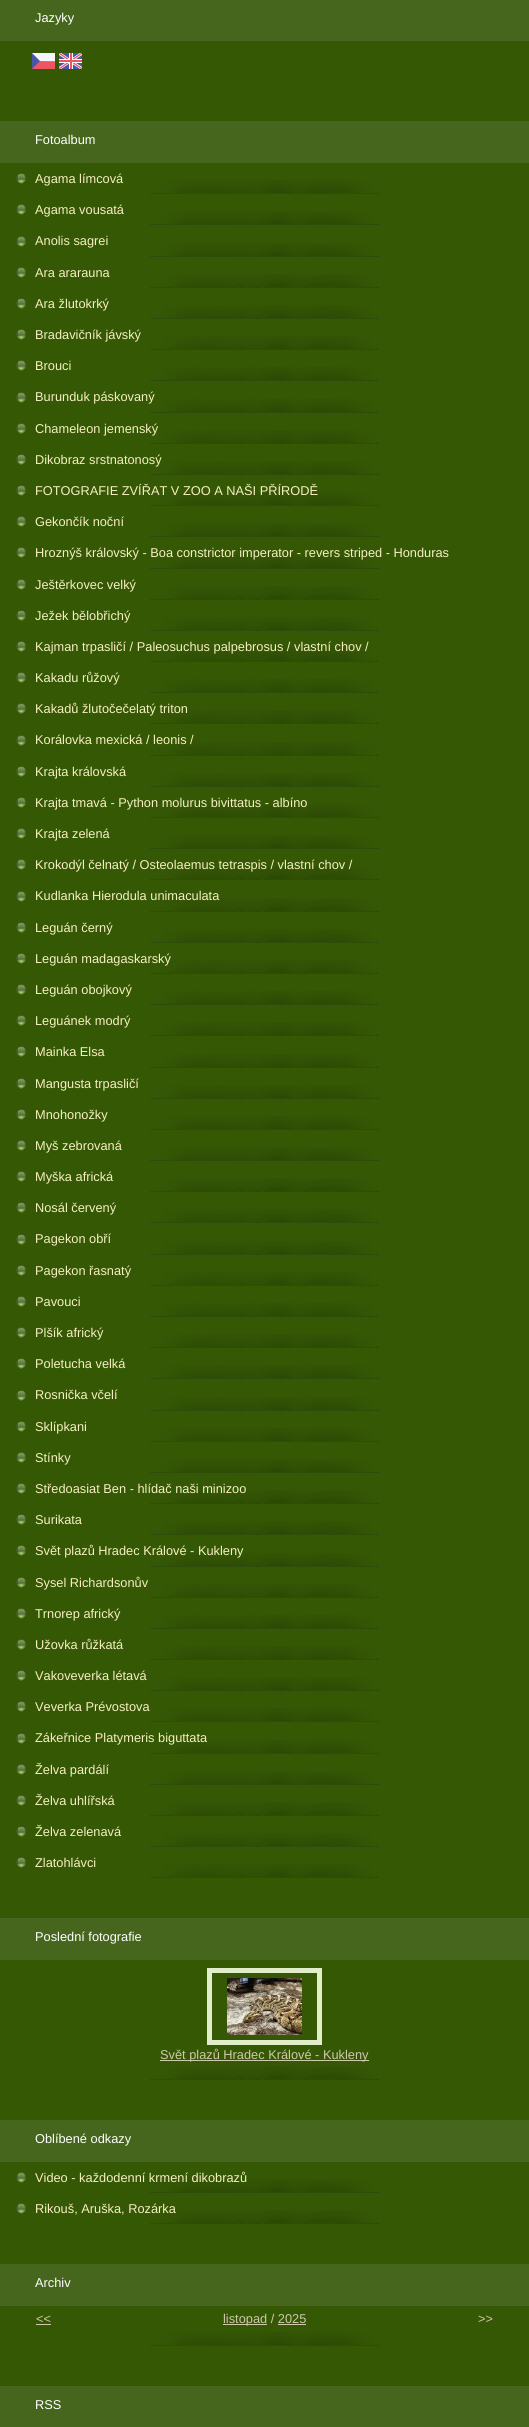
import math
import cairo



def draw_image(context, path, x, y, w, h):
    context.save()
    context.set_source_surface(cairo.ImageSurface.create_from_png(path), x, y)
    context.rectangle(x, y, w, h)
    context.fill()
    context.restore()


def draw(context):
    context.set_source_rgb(53 / 255, 88 / 255, 5 / 255)
    context.paint()
    context.set_source_rgb(70 / 255, 102 / 255, 30 / 255)
    context.rectangle(0, 0, 529, 41)
    context.fill()
    draw_image(context, "images/1.png", 32, 53, 23, 16)
    draw_image(context, "images/2.png", 59, 53, 23, 16)
    context.rectangle(0, 121, 529, 42)
    context.fill()
    draw_image(context, "images/3.png", 150, 1864, 230, 14)
    draw_image(context, "images/3.png", 150, 180, 230, 14)
    draw_image(context, "images/4.png", 16, 173, 11, 11)
    draw_image(context, "images/3.png", 150, 211, 230, 14)
    draw_image(context, "images/4.png", 16, 204, 11, 11)
    draw_image(context, "images/3.png", 150, 243, 230, 14)
    draw_image(context, "images/4.png", 16, 236, 11, 11)
    draw_image(context, "images/3.png", 150, 274, 230, 14)
    draw_image(context, "images/4.png", 16, 267, 11, 11)
    draw_image(context, "images/3.png", 150, 305, 230, 14)
    draw_image(context, "images/4.png", 16, 298, 11, 11)
    draw_image(context, "images/3.png", 150, 336, 230, 14)
    draw_image(context, "images/4.png", 16, 329, 11, 11)
    draw_image(context, "images/3.png", 150, 367, 230, 14)
    draw_image(context, "images/4.png", 16, 360, 11, 11)
    draw_image(context, "images/3.png", 150, 399, 230, 14)
    draw_image(context, "images/4.png", 16, 392, 11, 11)
    draw_image(context, "images/3.png", 150, 430, 230, 14)
    draw_image(context, "images/4.png", 16, 423, 11, 11)
    draw_image(context, "images/3.png", 150, 461, 230, 14)
    draw_image(context, "images/4.png", 16, 454, 11, 11)
    draw_image(context, "images/3.png", 150, 492, 230, 14)
    draw_image(context, "images/4.png", 16, 485, 11, 11)
    draw_image(context, "images/3.png", 150, 523, 230, 14)
    draw_image(context, "images/4.png", 16, 516, 11, 11)
    draw_image(context, "images/3.png", 150, 555, 230, 14)
    draw_image(context, "images/4.png", 16, 547, 11, 11)
    draw_image(context, "images/3.png", 150, 586, 230, 14)
    draw_image(context, "images/4.png", 16, 579, 11, 11)
    draw_image(context, "images/3.png", 150, 617, 230, 14)
    draw_image(context, "images/4.png", 16, 610, 11, 11)
    draw_image(context, "images/3.png", 150, 648, 230, 14)
    draw_image(context, "images/4.png", 16, 641, 11, 11)
    draw_image(context, "images/3.png", 150, 679, 230, 14)
    draw_image(context, "images/4.png", 16, 672, 11, 11)
    draw_image(context, "images/3.png", 150, 710, 230, 14)
    draw_image(context, "images/4.png", 16, 703, 11, 11)
    draw_image(context, "images/3.png", 150, 742, 230, 14)
    draw_image(context, "images/4.png", 16, 735, 11, 11)
    draw_image(context, "images/3.png", 150, 773, 230, 14)
    draw_image(context, "images/4.png", 16, 766, 11, 11)
    draw_image(context, "images/3.png", 150, 804, 230, 14)
    draw_image(context, "images/4.png", 16, 797, 11, 11)
    draw_image(context, "images/3.png", 150, 835, 230, 14)
    draw_image(context, "images/4.png", 16, 828, 11, 11)
    draw_image(context, "images/3.png", 150, 866, 230, 14)
    draw_image(context, "images/4.png", 16, 859, 11, 11)
    draw_image(context, "images/3.png", 150, 898, 230, 14)
    draw_image(context, "images/4.png", 16, 891, 11, 11)
    draw_image(context, "images/3.png", 150, 929, 230, 14)
    draw_image(context, "images/4.png", 16, 922, 11, 11)
    draw_image(context, "images/3.png", 150, 960, 230, 14)
    draw_image(context, "images/4.png", 16, 953, 11, 11)
    draw_image(context, "images/3.png", 150, 991, 230, 14)
    draw_image(context, "images/4.png", 16, 984, 11, 11)
    draw_image(context, "images/3.png", 150, 1022, 230, 14)
    draw_image(context, "images/4.png", 16, 1015, 11, 11)
    draw_image(context, "images/3.png", 150, 1054, 230, 14)
    draw_image(context, "images/4.png", 16, 1046, 11, 11)
    draw_image(context, "images/3.png", 150, 1085, 230, 14)
    draw_image(context, "images/4.png", 16, 1078, 11, 11)
    draw_image(context, "images/3.png", 150, 1116, 230, 14)
    draw_image(context, "images/4.png", 16, 1109, 11, 11)
    draw_image(context, "images/3.png", 150, 1147, 230, 14)
    draw_image(context, "images/4.png", 16, 1140, 11, 11)
    draw_image(context, "images/3.png", 150, 1178, 230, 14)
    draw_image(context, "images/4.png", 16, 1171, 11, 11)
    draw_image(context, "images/3.png", 150, 1209, 230, 14)
    draw_image(context, "images/4.png", 16, 1202, 11, 11)
    draw_image(context, "images/3.png", 150, 1241, 230, 14)
    draw_image(context, "images/4.png", 16, 1234, 11, 11)
    draw_image(context, "images/3.png", 150, 1272, 230, 14)
    draw_image(context, "images/4.png", 16, 1265, 11, 11)
    draw_image(context, "images/3.png", 150, 1303, 230, 14)
    draw_image(context, "images/4.png", 16, 1296, 11, 11)
    draw_image(context, "images/3.png", 150, 1334, 230, 14)
    draw_image(context, "images/4.png", 16, 1327, 11, 11)
    draw_image(context, "images/3.png", 150, 1365, 230, 14)
    draw_image(context, "images/4.png", 16, 1358, 11, 11)
    draw_image(context, "images/3.png", 150, 1397, 230, 14)
    draw_image(context, "images/4.png", 16, 1390, 11, 11)
    draw_image(context, "images/3.png", 150, 1428, 230, 14)
    draw_image(context, "images/4.png", 16, 1421, 11, 11)
    draw_image(context, "images/3.png", 150, 1459, 230, 14)
    draw_image(context, "images/4.png", 16, 1452, 11, 11)
    draw_image(context, "images/3.png", 150, 1490, 230, 14)
    draw_image(context, "images/4.png", 16, 1483, 11, 11)
    draw_image(context, "images/3.png", 150, 1521, 230, 14)
    draw_image(context, "images/4.png", 16, 1514, 11, 11)
    draw_image(context, "images/3.png", 150, 1553, 230, 14)
    draw_image(context, "images/4.png", 16, 1545, 11, 11)
    draw_image(context, "images/3.png", 150, 1584, 230, 14)
    draw_image(context, "images/4.png", 16, 1577, 11, 11)
    draw_image(context, "images/3.png", 150, 1615, 230, 14)
    draw_image(context, "images/4.png", 16, 1608, 11, 11)
    draw_image(context, "images/3.png", 150, 1646, 230, 14)
    draw_image(context, "images/4.png", 16, 1639, 11, 11)
    draw_image(context, "images/3.png", 150, 1677, 230, 14)
    draw_image(context, "images/4.png", 16, 1670, 11, 11)
    draw_image(context, "images/3.png", 150, 1708, 230, 14)
    draw_image(context, "images/4.png", 16, 1701, 11, 11)
    draw_image(context, "images/3.png", 150, 1740, 230, 14)
    draw_image(context, "images/4.png", 16, 1733, 11, 11)
    draw_image(context, "images/3.png", 150, 1771, 230, 14)
    draw_image(context, "images/4.png", 16, 1764, 11, 11)
    draw_image(context, "images/3.png", 150, 1802, 230, 14)
    draw_image(context, "images/4.png", 16, 1795, 11, 11)
    draw_image(context, "images/3.png", 150, 1833, 230, 14)
    draw_image(context, "images/4.png", 16, 1826, 11, 11)
    draw_image(context, "images/4.png", 16, 1857, 11, 11)
    context.rectangle(0, 1918, 529, 42)
    context.fill()
    draw_image(context, "images/3.png", 150, 2066, 230, 14)
    context.rectangle(209.5, 1970.5, 110, 72)
    context.set_source_rgb(224 / 255, 239 / 255, 202 / 255)
    context.set_line_width(5)
    context.stroke()
    draw_image(context, "images/5.png", 227, 1978, 75, 57)
    context.set_source_rgb(208 / 255, 200 / 255, 170 / 255)
    context.rectangle(160, 2060, 209, 1)
    context.fill()
    context.set_source_rgb(70 / 255, 102 / 255, 30 / 255)
    context.rectangle(0, 2120, 529, 42)
    context.fill()
    draw_image(context, "images/3.png", 150, 2210, 230, 14)
    draw_image(context, "images/3.png", 150, 2179, 230, 14)
    draw_image(context, "images/4.png", 16, 2172, 11, 11)
    draw_image(context, "images/4.png", 16, 2203, 11, 11)
    context.rectangle(0, 2264, 529, 42)
    context.fill()
    draw_image(context, "images/3.png", 150, 2332, 230, 14)
    context.set_source_rgb(208 / 255, 200 / 255, 170 / 255)
    context.rectangle(36, 2324, 15, 1)
    context.fill()
    context.rectangle(223, 2324, 44, 1)
    context.fill()
    context.rectangle(278, 2324, 28, 1)
    context.fill()
    context.set_source_rgb(70 / 255, 102 / 255, 30 / 255)
    context.rectangle(0, 2386, 529, 41)
    context.fill()
    context.select_font_face("Liberation Sans")
    context.set_font_size(12.8)
    context.set_source_rgb(1, 1, 1)
    context.move_to(35, 22)
    context.show_text("Jazyky")
    context.move_to(35, 144)
    context.show_text("Fotoalbum")
    context.set_source_rgb(246 / 255, 239 / 255, 193 / 255)
    context.move_to(35, 183)
    context.show_text("Agama límcová")
    context.move_to(35, 214)
    context.show_text("Agama vousatá")
    context.move_to(35, 245)
    context.show_text("Anolis sagrei")
    context.move_to(35, 277)
    context.show_text("Ara ararauna")
    context.move_to(35, 308)
    context.show_text("Ara žlutokrký")
    context.move_to(35, 339)
    context.show_text("Bradavičník jávský")
    context.move_to(35, 370)
    context.show_text("Brouci")
    context.move_to(35, 401)
    context.show_text("Burunduk páskovaný")
    context.move_to(35, 433)
    context.show_text("Chameleon jemenský")
    context.move_to(35, 464)
    context.show_text("Dikobraz srstnatonosý")
    context.move_to(35, 495)
    context.show_text("FOTOGRAFIE ZVÍŘAT V ZOO A NAŠI PŘÍRODĚ")
    context.move_to(35, 526)
    context.show_text("Gekončík noční")
    context.move_to(35, 557)
    context.show_text("Hroznýš královský - Boa constrictor imperator - revers striped - Honduras")
    context.move_to(35, 589)
    context.show_text("Ještěrkovec velký")
    context.move_to(35, 620)
    context.show_text("Ježek bělobřichý")
    context.move_to(35, 651)
    context.show_text("Kajman trpasličí / Paleosuchus palpebrosus / vlastní chov /")
    context.move_to(35, 682)
    context.show_text("Kakadu růžový")
    context.move_to(35, 713)
    context.show_text("Kakadů žlutočečelatý triton")
    context.move_to(35, 744)
    context.show_text("Korálovka mexická / leonis /")
    context.move_to(35, 776)
    context.show_text("Krajta královská")
    context.move_to(35, 807)
    context.show_text("Krajta tmavá - Python molurus bivittatus - albíno")
    context.move_to(35, 838)
    context.show_text("Krajta zelená")
    context.move_to(35, 869)
    context.show_text("Krokodýl čelnatý / Osteolaemus tetraspis / vlastní chov /")
    context.move_to(35, 900)
    context.show_text("Kudlanka Hierodula unimaculata")
    context.move_to(35, 932)
    context.show_text("Leguán černý")
    context.move_to(35, 963)
    context.show_text("Leguán madagaskarský")
    context.move_to(35, 994)
    context.show_text("Leguán obojkový")
    context.move_to(35, 1025)
    context.show_text("Leguánek modrý")
    context.move_to(35, 1056)
    context.show_text("Mainka Elsa")
    context.move_to(35, 1088)
    context.show_text("Mangusta trpasličí")
    context.move_to(35, 1119)
    context.show_text("Mnohonožky")
    context.move_to(35, 1150)
    context.show_text("Myš zebrovaná")
    context.move_to(35, 1181)
    context.show_text("Myška africká")
    context.move_to(35, 1212)
    context.show_text("Nosál červený")
    context.move_to(35, 1243)
    context.show_text("Pagekon obří")
    context.move_to(35, 1275)
    context.show_text("Pagekon řasnatý")
    context.move_to(35, 1306)
    context.show_text("Pavouci")
    context.move_to(35, 1337)
    context.show_text("Plšík africký")
    context.move_to(35, 1368)
    context.show_text("Poletucha velká")
    context.move_to(35, 1399)
    context.show_text("Rosnička včelí")
    context.move_to(35, 1431)
    context.show_text("Sklípkani")
    context.move_to(35, 1462)
    context.show_text("Stínky")
    context.move_to(35, 1493)
    context.show_text("Středoasiat Ben - hlídač naši minizoo")
    context.move_to(35, 1524)
    context.show_text("Surikata")
    context.move_to(35, 1555)
    context.show_text("Svět plazů Hradec Králové - Kukleny")
    context.move_to(35, 1587)
    context.show_text("Sysel Richardsonův")
    context.move_to(35, 1618)
    context.show_text("Trnorep africký")
    context.move_to(35, 1649)
    context.show_text("Užovka růžkatá")
    context.move_to(35, 1680)
    context.show_text("Vakoveverka létavá")
    context.move_to(35, 1711)
    context.show_text("Veverka Prévostova")
    context.move_to(35, 1742)
    context.show_text("Zákeřnice Platymeris biguttata")
    context.move_to(35, 1774)
    context.show_text("Želva pardálí")
    context.move_to(35, 1805)
    context.show_text("Želva uhlířská")
    context.move_to(35, 1836)
    context.show_text("Želva zelenavá")
    context.move_to(35, 1867)
    context.show_text("Zlatohlávci")
    context.set_source_rgb(1, 1, 1)
    context.move_to(35, 1941)
    context.show_text("Poslední fotografie")
    context.set_source_rgb(208 / 255, 200 / 255, 170 / 255)
    context.move_to(160, 2059)
    context.show_text("Svět plazů Hradec Králové - Kukleny")
    context.set_source_rgb(1, 1, 1)
    context.move_to(35, 2143)
    context.show_text("Oblíbené odkazy")
    context.set_source_rgb(246 / 255, 239 / 255, 193 / 255)
    context.move_to(35, 2182)
    context.show_text("Video - každodenní krmení dikobrazů")
    context.move_to(35, 2213)
    context.show_text("Rikouš, Aruška, Rozárka")
    context.set_source_rgb(1, 1, 1)
    context.move_to(35, 2287)
    context.show_text("Archiv")
    context.set_source_rgb(208 / 255, 200 / 255, 170 / 255)
    context.move_to(36, 2323)
    context.show_text("<<")
    context.move_to(223, 2323)
    context.show_text("listopad / 2025")
    context.move_to(478, 2323)
    context.show_text(">>")
    context.set_source_rgb(1, 1, 1)
    context.move_to(35, 2409)
    context.show_text("RSS")


surface = cairo.ImageSurface(cairo.Format.RGB24, 529, 2427)
context = cairo.Context(surface)
options = cairo.FontOptions()
options.set_hint_metrics(cairo.HintMetrics.OFF)
options.set_hint_style(cairo.HintStyle.NONE)
context.set_font_options(options)
context.set_miter_limit(4)
draw(context)
surface.write_to_png("out.png")
